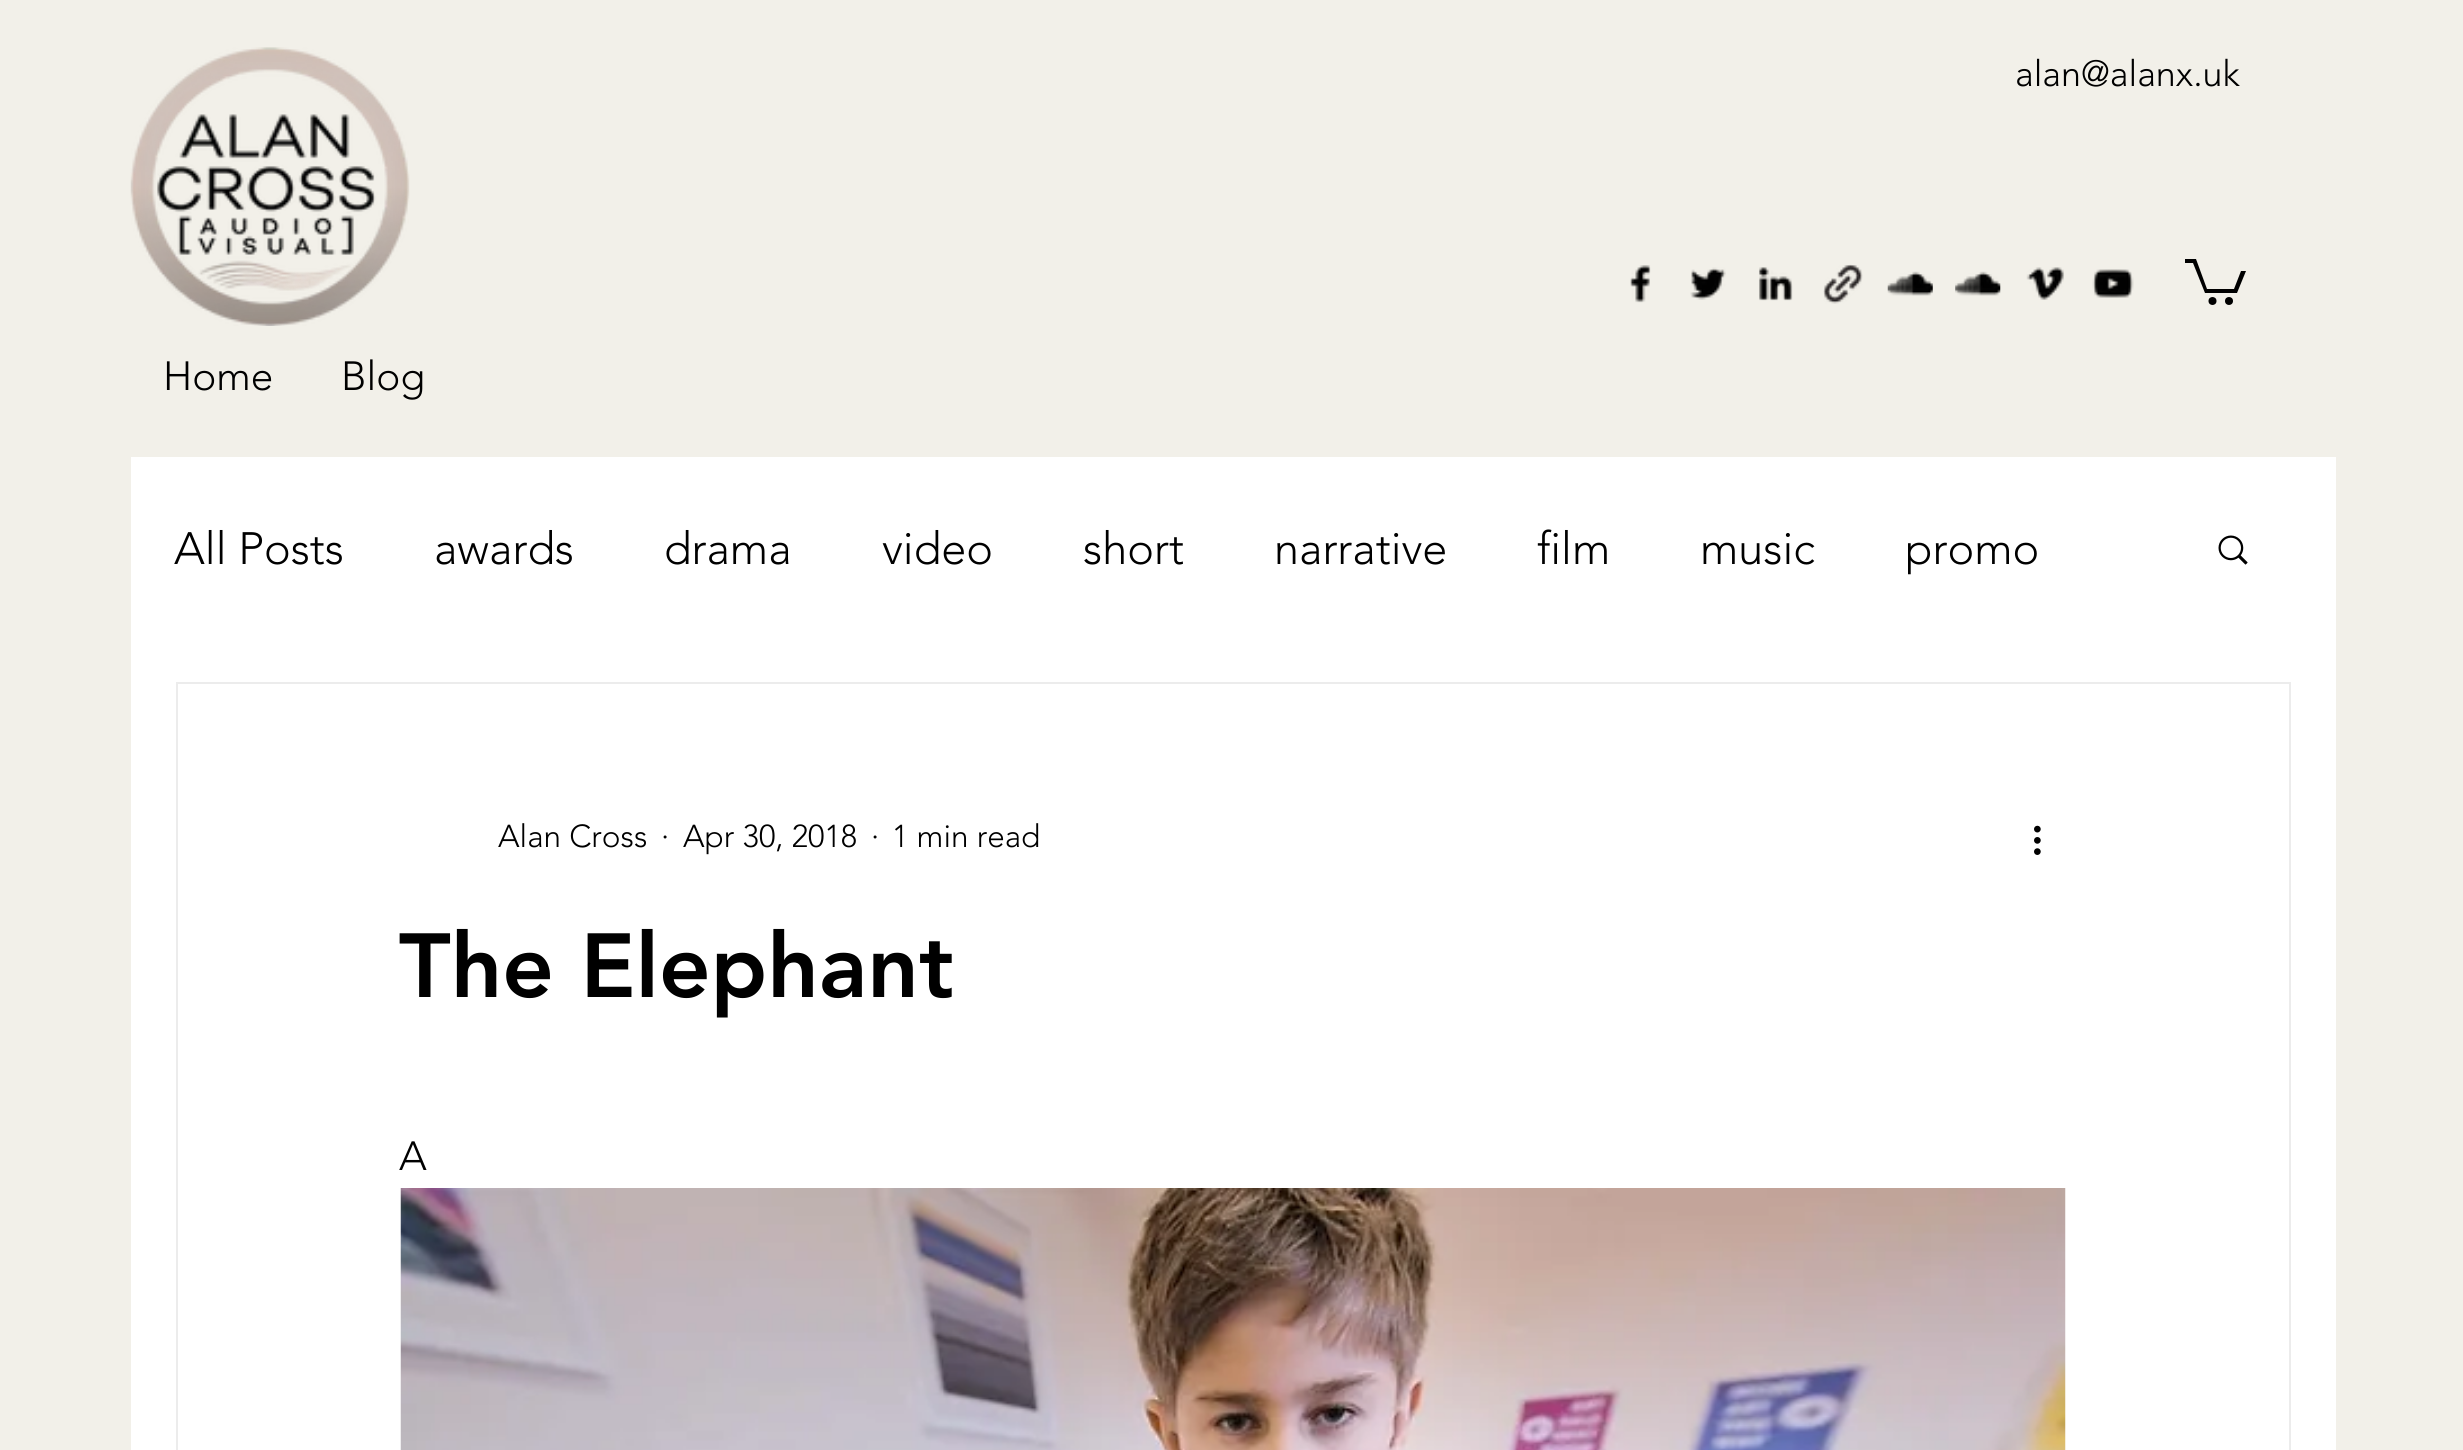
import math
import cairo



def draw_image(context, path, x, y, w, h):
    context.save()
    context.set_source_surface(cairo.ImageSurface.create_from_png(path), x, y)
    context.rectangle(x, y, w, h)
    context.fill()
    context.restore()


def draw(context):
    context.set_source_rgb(242 / 255, 240 / 255, 233 / 255)
    context.paint()
    draw_image(context, "images/1.png", 130, 47, 280, 279)
    draw_image(context, "images/2.png", 1630, 265, 21, 38)
    draw_image(context, "images/3.png", 1690, 267, 36, 33)
    draw_image(context, "images/4.png", 1759, 267, 34, 34)
    draw_image(context, "images/5.png", 1823, 264, 40, 40)
    draw_image(context, "images/6.png", 1887, 271, 46, 25)
    draw_image(context, "images/7.png", 1955, 271, 46, 25)
    draw_image(context, "images/8.png", 2026, 267, 38, 33)
    draw_image(context, "images/9.png", 2092, 269, 42, 29)
    context.set_source_rgb(0, 0, 0)
    context.new_path()
    context.move_to(2246, 271)
    context.line_to(2237, 293)
    context.line_to(2205, 293)
    context.line_to(2193, 263)
    context.line_to(2185, 263)
    context.line_to(2185, 259)
    context.line_to(2196, 259)
    context.line_to(2207, 289)
    context.line_to(2234, 289)
    context.line_to(2241, 271)
    context.fill()
    context.arc(2229, 301, 4, 0, 2 * math.pi)
    context.fill()
    context.arc(2212.5, 301, 4, 0, 2 * math.pi)
    context.fill()
    context.set_source_rgb(1, 1, 1)
    context.rectangle(131, 457, 2205, 993)
    context.fill()
    draw_image(context, "images/10.png", 2218, 535, 30, 30)
    context.rectangle(177, 683, 2113, 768)
    context.set_source_rgb(236 / 255, 236 / 255, 236 / 255)
    context.stroke()
    draw_image(context, "images/11.png", 2034, 825, 7, 30)
    draw_image(context, "images/12.png", 400, 1188, 1666, 262)
    context.select_font_face("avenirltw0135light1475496 Light")
    context.set_font_size(36)
    context.set_source_rgb(0, 0, 0)
    context.move_to(2015, 86)
    context.show_text("alan@alanx.uk")
    context.set_font_size(40.5)
    context.move_to(163, 390)
    context.show_text("Home")
    context.move_to(341, 390)
    context.show_text("Blog")
    context.set_font_size(45)
    context.move_to(174, 564)
    context.show_text("All Posts")
    context.move_to(434, 564)
    context.show_text("awards")
    context.move_to(664, 564)
    context.show_text("drama")
    context.move_to(882, 564)
    context.show_text("video")
    context.move_to(1083, 564)
    context.show_text("short")
    context.move_to(1274, 564)
    context.show_text("narrative")
    context.move_to(1537, 564)
    context.show_text("film")
    context.move_to(1700, 564)
    context.show_text("music")
    context.move_to(1905, 564)
    context.show_text("promo")
    context.set_font_size(31.5)
    context.move_to(498, 847)
    context.show_text("Alan Cross")
    context.move_to(661, 847)
    context.show_text("·")
    context.move_to(683, 847)
    context.show_text("Apr 30, 2018")
    context.move_to(871, 847)
    context.show_text("·")
    context.move_to(892, 847)
    context.show_text("1 min read")
    context.select_font_face("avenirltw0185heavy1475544 Black")
    context.set_font_size(90)
    context.move_to(399, 997)
    context.show_text("The Elephant")
    context.select_font_face("avenirltw0135light1475496 Light")
    context.set_font_size(40.5)
    context.move_to(399, 1170)
    context.show_text("A")


surface = cairo.ImageSurface(cairo.Format.RGB24, 2463, 1450)
context = cairo.Context(surface)
options = cairo.FontOptions()
options.set_hint_metrics(cairo.HintMetrics.OFF)
options.set_hint_style(cairo.HintStyle.NONE)
context.set_font_options(options)
context.set_miter_limit(4)
draw(context)
surface.write_to_png("out.png")
